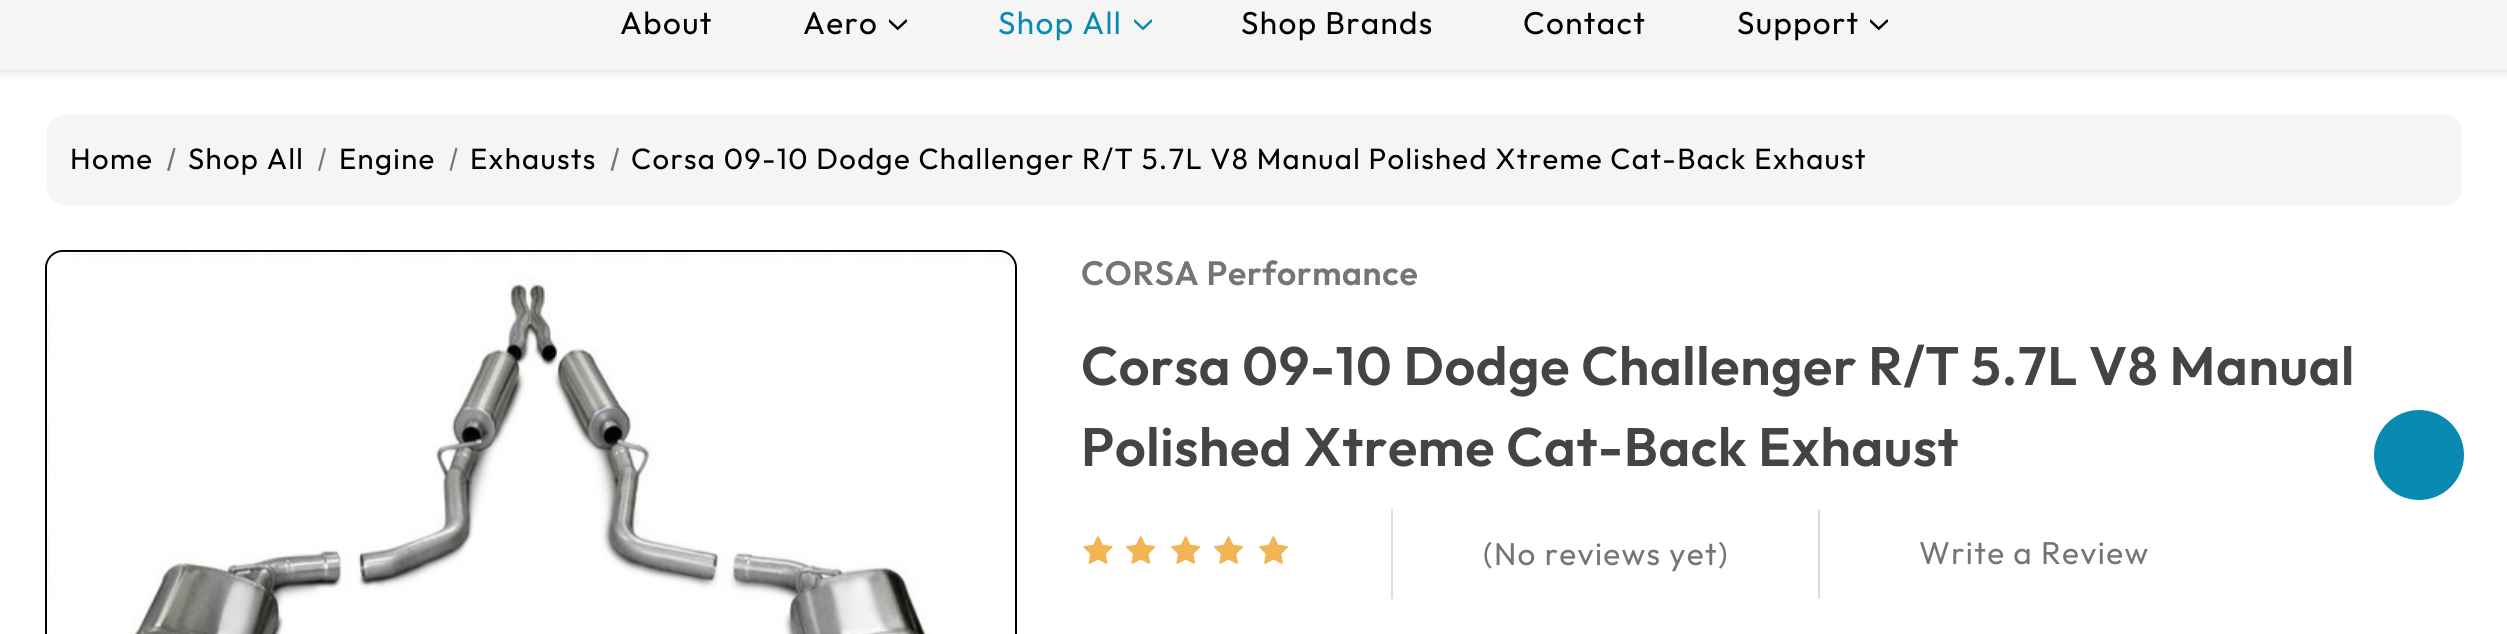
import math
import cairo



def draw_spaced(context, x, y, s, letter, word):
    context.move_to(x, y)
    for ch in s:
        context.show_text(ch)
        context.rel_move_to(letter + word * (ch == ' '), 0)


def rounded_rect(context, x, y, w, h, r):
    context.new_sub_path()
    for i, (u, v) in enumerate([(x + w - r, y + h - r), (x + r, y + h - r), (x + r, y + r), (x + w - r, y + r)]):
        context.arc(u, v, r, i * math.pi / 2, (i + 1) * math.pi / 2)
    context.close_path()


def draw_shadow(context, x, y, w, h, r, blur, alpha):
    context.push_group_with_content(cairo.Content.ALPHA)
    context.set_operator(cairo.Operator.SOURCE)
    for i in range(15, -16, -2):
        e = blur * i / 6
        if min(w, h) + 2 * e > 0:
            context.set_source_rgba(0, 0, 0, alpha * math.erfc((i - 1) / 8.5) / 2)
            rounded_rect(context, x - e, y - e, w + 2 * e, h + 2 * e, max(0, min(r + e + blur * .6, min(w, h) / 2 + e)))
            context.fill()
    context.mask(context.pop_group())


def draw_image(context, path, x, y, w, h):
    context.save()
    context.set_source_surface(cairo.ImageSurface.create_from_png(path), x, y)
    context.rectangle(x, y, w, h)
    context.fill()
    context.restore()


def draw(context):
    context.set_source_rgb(1, 1, 1)
    context.paint()
    context.set_source_rgb(0, 0, 0)
    draw_shadow(context, 0, -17, 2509, 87, 0, 5.5, 0.18)
    context.set_source_rgb(245 / 255, 245 / 255, 245 / 255)
    context.rectangle(0, 0, 2507, 70)
    context.fill()
    draw_image(context, "images/1.png", 889, 19, 18, 12)
    draw_image(context, "images/2.png", 1134, 19, 18, 12)
    draw_image(context, "images/1.png", 1870, 19, 18, 12)
    rounded_rect(context, 47, 115, 2415, 90, 18)
    context.fill()
    context.set_source_rgb(117 / 255, 117 / 255, 117 / 255)
    context.new_path()
    context.move_to(173.5, 147.5)
    context.line_to(175.5, 148.5)
    context.line_to(169.5, 171)
    context.line_to(167, 170.5)
    context.close_path()
    context.fill()
    context.new_path()
    context.move_to(324, 147.5)
    context.line_to(326, 148.5)
    context.line_to(320, 171)
    context.line_to(318, 170.5)
    context.close_path()
    context.fill()
    context.new_path()
    context.move_to(455.5, 147.5)
    context.line_to(457.5, 148.5)
    context.line_to(451.5, 171)
    context.line_to(449.5, 170.5)
    context.close_path()
    context.fill()
    context.new_path()
    context.move_to(617, 147.5)
    context.line_to(619, 148.5)
    context.line_to(613, 171)
    context.line_to(610.5, 170.5)
    context.close_path()
    context.fill()
    rounded_rect(context, 46, 251, 970, 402, 17)
    context.set_source_rgb(0, 0, 0)
    context.stroke()
    draw_image(context, "images/3.png", 47, 251, 968, 383)
    draw_image(context, "images/4.png", 1083, 536, 30, 28)
    draw_image(context, "images/5.png", 1126, 536, 30, 28)
    draw_image(context, "images/5.png", 1171, 536, 30, 28)
    draw_image(context, "images/6.png", 1213, 536, 31, 28)
    draw_image(context, "images/6.png", 1258, 536, 31, 28)
    context.set_source_rgb(221 / 255, 221 / 255, 221 / 255)
    context.rectangle(1818, 509, 2, 90)
    context.fill()
    context.rectangle(1391, 509, 2, 90)
    context.fill()
    context.set_source_rgb(10 / 255, 138 / 255, 178 / 255)
    context.arc(2419, 455, 45, 0, 2 * math.pi)
    context.fill()
    context.save()
    context.new_path()
    context.move_to(2407.5, 457)
    context.line_to(2407.5, 443)
    context.line_to(2430, 443)
    context.line_to(2430, 457)
    context.close_path()
    context.clip()
    context.new_path()
    context.move_to(2405, 454.5)
    context.curve_to(2394.5, 444, 2394.5, 447, 2405, 436.5)
    context.set_source_rgb(1, 1, 1)
    context.set_line_width(4.5)
    context.set_line_cap(cairo.LineCap.ROUND)
    context.set_line_join(cairo.LineJoin.ROUND)
    context.stroke()
    context.restore()
    context.select_font_face("Outfit")
    context.set_font_size(31.5)
    context.set_source_rgb(0, 0, 0)
    draw_spaced(context, 620, 34, "About", 1.35, 0)
    draw_spaced(context, 803, 34, "Aero", 1.35, 0)
    context.set_source_rgb(10 / 255, 138 / 255, 178 / 255)
    draw_spaced(context, 998, 34, "Shop All", 1.35, 0)
    context.set_source_rgb(0, 0, 0)
    draw_spaced(context, 1241, 34, "Shop Brands", 1.35, 0)
    draw_spaced(context, 1523, 34, "Contact", 1.35, 0)
    draw_spaced(context, 1737, 34, "Support", 1.35, 0)
    context.set_font_size(29.25)
    draw_spaced(context, 70, 169, "Home", 1.35, 0)
    draw_spaced(context, 188, 169, "Shop All", 1.35, 0)
    draw_spaced(context, 339, 169, "Engine", 1.35, 0)
    draw_spaced(context, 470, 169, "Exhausts", 1.35, 0)
    draw_spaced(context, 631, 169, "Corsa 09-10 Dodge Challenger R/T 5.7L V8 Manual Polished Xtreme Cat-Back Exhaust", 1.35, 0)
    context.select_font_face("Outfit SemiBold")
    context.set_font_size(33.75)
    context.set_source_rgb(117 / 255, 117 / 255, 117 / 255)
    draw_spaced(context, 1081, 285, "CORSA Performance", 0.65, 0)
    context.set_font_size(54)
    context.set_source_rgb(68 / 255, 68 / 255, 68 / 255)
    draw_spaced(context, 1081, 385, "Corsa 09-10 Dodge Challenger R/T 5.7L V8 Manual", 0.65, 0)
    draw_spaced(context, 1081, 466, "Polished Xtreme Cat-Back Exhaust", 0.65, 0)
    context.select_font_face("Outfit")
    context.set_font_size(31.5)
    context.set_source_rgb(117 / 255, 117 / 255, 117 / 255)
    draw_spaced(context, 1483, 565, "(No reviews yet)", 1.35, 0)
    draw_spaced(context, 1919, 564, "Write a Review", 1.35, 0)


surface = cairo.ImageSurface(cairo.Format.RGB24, 2507, 634)
context = cairo.Context(surface)
options = cairo.FontOptions()
options.set_hint_metrics(cairo.HintMetrics.OFF)
options.set_hint_style(cairo.HintStyle.NONE)
context.set_font_options(options)
context.set_miter_limit(4)
draw(context)
surface.write_to_png("out.png")
